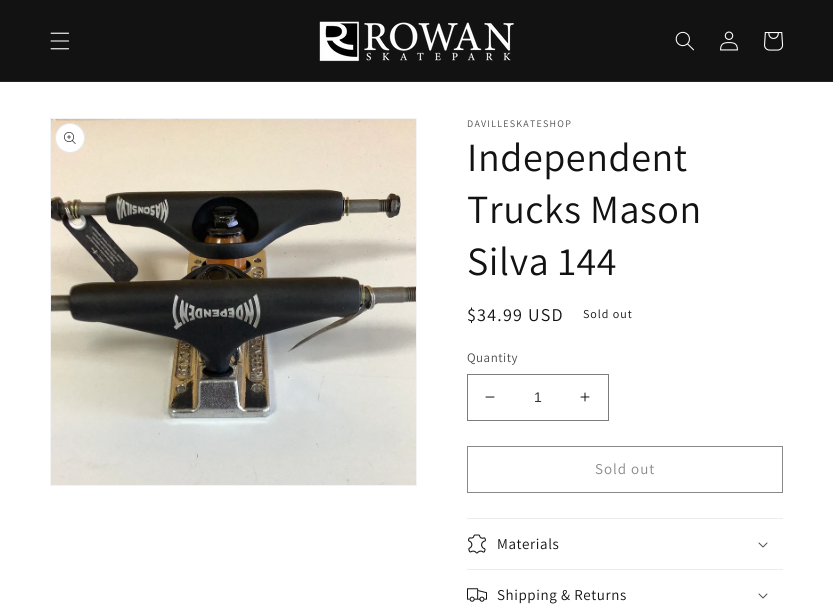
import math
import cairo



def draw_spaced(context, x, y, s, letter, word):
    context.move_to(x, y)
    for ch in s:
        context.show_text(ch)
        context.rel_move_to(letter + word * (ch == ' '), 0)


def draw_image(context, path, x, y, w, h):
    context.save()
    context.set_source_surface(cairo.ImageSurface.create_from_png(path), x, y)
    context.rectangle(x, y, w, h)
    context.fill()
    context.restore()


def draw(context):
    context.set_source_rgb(1, 1, 1)
    context.paint()
    context.set_source_rgb(18 / 255, 18 / 255, 18 / 255)
    context.rectangle(0, 0, 833, 81)
    context.fill()
    context.set_source_rgb(37 / 255, 37 / 255, 37 / 255)
    context.rectangle(0, 81, 833, 1)
    context.fill()
    draw_image(context, "images/1.png", 50, 32, 20, 18)
    draw_image(context, "images/2.png", 319, 21, 195, 41)
    draw_image(context, "images/3.png", 675, 31, 19, 20)
    draw_image(context, "images/4.png", 720, 31, 18, 20)
    draw_image(context, "images/5.png", 764, 32, 20, 19)
    context.rectangle(50.5, 118.5, 366, 367)
    context.set_source_rgb(243 / 255, 243 / 255, 243 / 255)
    context.set_line_width(1)
    context.stroke()
    draw_image(context, "images/6.png", 51, 119, 365, 366)
    context.set_source_rgb(1, 1, 1)
    context.arc(70, 138, 15, 0, 2 * math.pi)
    context.fill()
    context.arc(70, 138, 14.5, 0, 2 * math.pi)
    context.set_source_rgba(18 / 255, 18 / 255, 18 / 255, 0.1)
    context.stroke()
    draw_image(context, "images/7.png", 64, 132, 12, 12)
    draw_image(context, "images/8.png", 485, 396, 10, 2)
    draw_image(context, "images/9.png", 580, 392, 10, 10)
    context.rectangle(467.5, 374.5, 141, 46)
    context.set_source_rgb(125 / 255, 125 / 255, 125 / 255)
    context.stroke()
    context.rectangle(467.5, 446.5, 315, 46)
    context.set_source_rgb(137 / 255, 137 / 255, 137 / 255)
    context.stroke()
    context.set_source_rgb(236 / 255, 236 / 255, 236 / 255)
    context.rectangle(467, 518, 316, 1)
    context.fill()
    context.rectangle(467, 569, 316, 1)
    context.fill()
    draw_image(context, "images/10.png", 468, 534, 18, 20)
    draw_image(context, "images/11.png", 758, 542, 10, 6)
    draw_image(context, "images/12.png", 467, 588, 20, 14)
    draw_image(context, "images/11.png", 758, 593, 10, 6)
    context.select_font_face("Assistant")
    context.set_font_size(10)
    context.set_source_rgb(77 / 255, 77 / 255, 77 / 255)
    draw_spaced(context, 467, 127, "DAVILLESKATESHOP", 1.25, 0)
    context.set_font_size(40)
    context.set_source_rgb(18 / 255, 18 / 255, 18 / 255)
    draw_spaced(context, 467, 171, "Independent", 0.6, 0)
    draw_spaced(context, 467, 223, "Trucks Mason", 0.6, 0)
    draw_spaced(context, 467, 275, "Silva 144", 0.6, 0)
    context.set_font_size(18)
    draw_spaced(context, 467, 321, "$34.99 USD", 1.25, 0)
    context.set_font_size(12)
    draw_spaced(context, 583, 318, "Sold out", 1, 0)
    context.set_font_size(13)
    context.set_source_rgb(77 / 255, 77 / 255, 77 / 255)
    draw_spaced(context, 467, 362, "Quantity", 0.5, 0)
    context.select_font_face("Liberation Sans")
    context.set_font_size(14)
    context.set_source_rgb(54 / 255, 54 / 255, 54 / 255)
    context.move_to(534, 402)
    context.show_text("1")
    context.select_font_face("Assistant")
    context.set_font_size(15)
    context.set_source_rgb(137 / 255, 137 / 255, 137 / 255)
    draw_spaced(context, 595, 474, "Sold out", 1, 0)
    context.set_source_rgb(18 / 255, 18 / 255, 18 / 255)
    draw_spaced(context, 497, 549, "Materials", 0.6, 0)
    draw_spaced(context, 497, 600, "Shipping & Returns", 0.6, 0)


surface = cairo.ImageSurface(cairo.Format.RGB24, 833, 615)
context = cairo.Context(surface)
options = cairo.FontOptions()
options.set_hint_metrics(cairo.HintMetrics.OFF)
options.set_hint_style(cairo.HintStyle.NONE)
context.set_font_options(options)
context.set_miter_limit(4)
draw(context)
surface.write_to_png("out.png")
